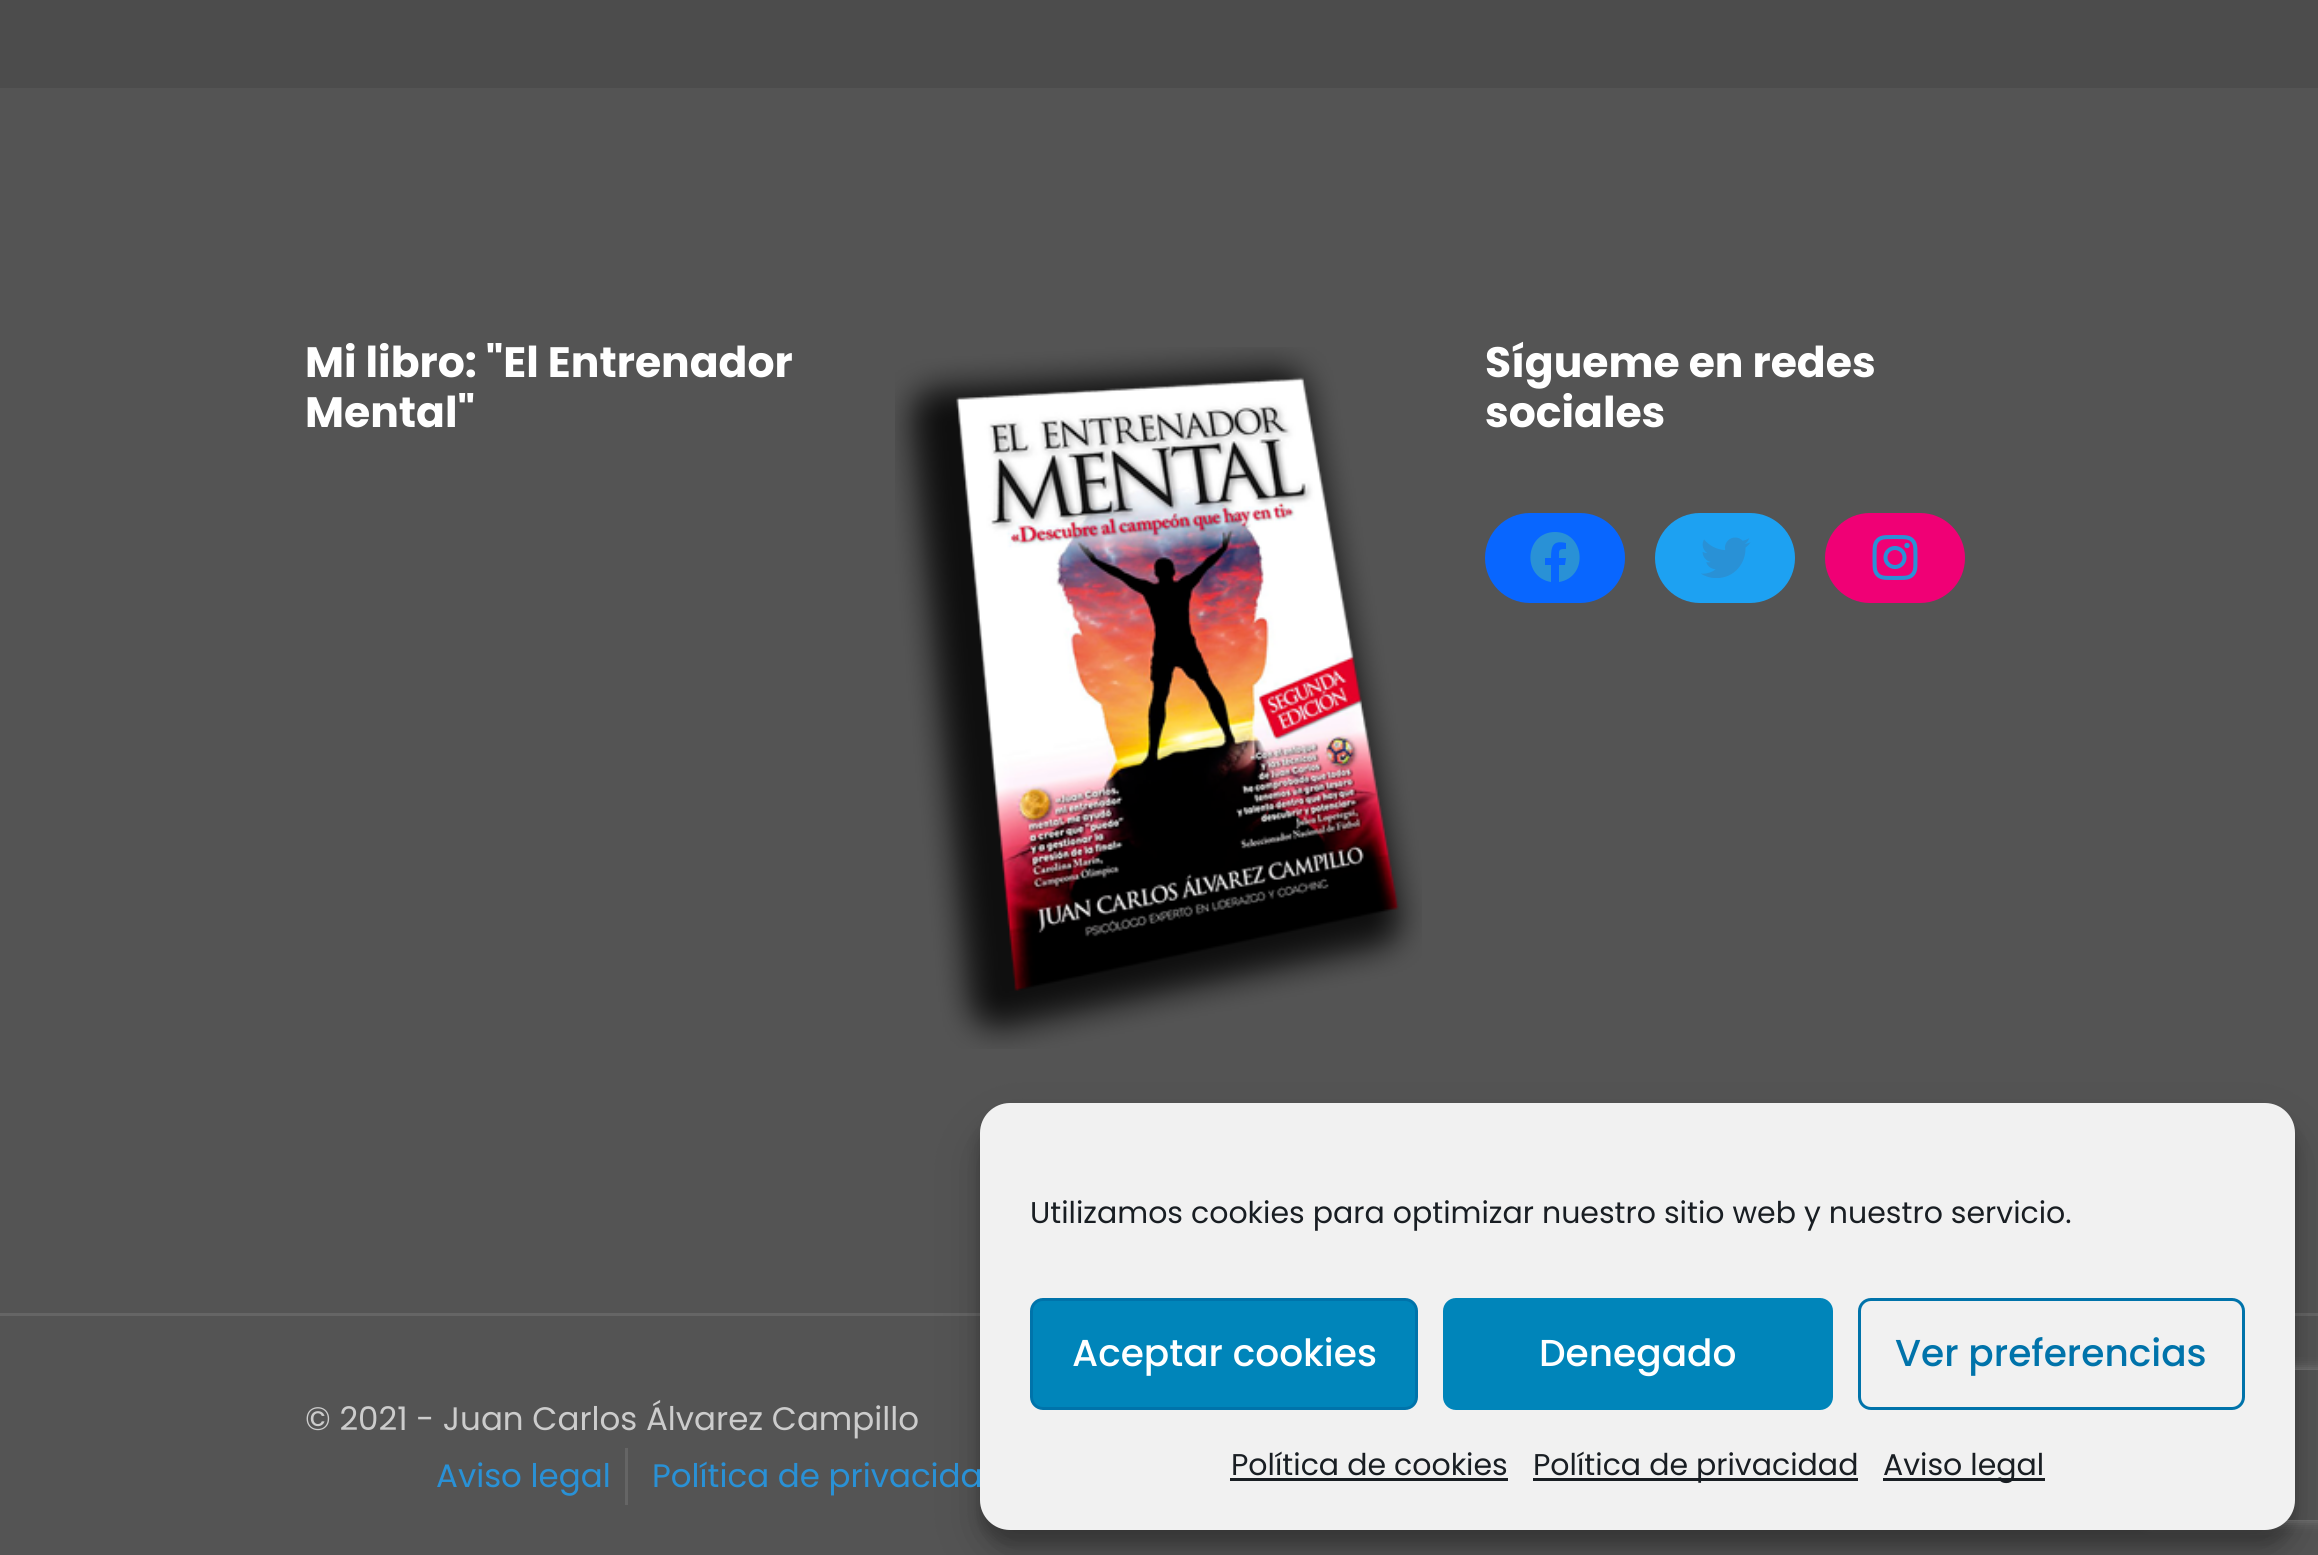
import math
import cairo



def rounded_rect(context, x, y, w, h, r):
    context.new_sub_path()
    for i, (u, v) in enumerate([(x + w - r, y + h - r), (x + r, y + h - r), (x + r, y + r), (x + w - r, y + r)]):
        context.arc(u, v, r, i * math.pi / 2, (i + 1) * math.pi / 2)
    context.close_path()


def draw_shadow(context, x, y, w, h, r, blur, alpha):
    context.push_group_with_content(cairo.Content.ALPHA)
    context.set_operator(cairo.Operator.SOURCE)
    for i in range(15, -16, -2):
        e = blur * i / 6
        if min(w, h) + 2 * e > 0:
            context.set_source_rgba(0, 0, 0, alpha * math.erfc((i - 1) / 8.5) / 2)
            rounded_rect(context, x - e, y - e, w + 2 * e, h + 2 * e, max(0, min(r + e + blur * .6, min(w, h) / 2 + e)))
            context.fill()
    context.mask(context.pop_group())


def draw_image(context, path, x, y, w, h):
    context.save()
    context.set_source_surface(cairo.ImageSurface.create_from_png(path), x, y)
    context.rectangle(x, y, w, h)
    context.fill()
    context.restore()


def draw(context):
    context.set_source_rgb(84 / 255, 84 / 255, 84 / 255)
    context.paint()
    context.set_source_rgb(76 / 255, 76 / 255, 76 / 255)
    context.rectangle(0, 0, 2318, 88)
    context.fill()
    draw_image(context, "images/1.png", 895, 347, 527, 702)
    context.set_source_rgb(8 / 255, 102 / 255, 1)
    rounded_rect(context, 1485, 513, 140, 90, 45)
    context.fill()
    context.set_source_rgb(41 / 255, 145 / 255, 214 / 255)
    context.new_path()
    context.move_to(1555, 532)
    context.curve_to(1525, 532, 1521, 577, 1551, 582)
    context.line_to(1551, 565)
    context.line_to(1545, 565)
    context.line_to(1545, 558)
    context.line_to(1551, 558)
    context.curve_to(1551, 546, 1553, 540, 1566, 543)
    context.line_to(1566, 549)
    context.curve_to(1558, 549, 1559, 550, 1559, 558)
    context.line_to(1566, 558)
    context.line_to(1565, 565)
    context.line_to(1559, 565)
    context.line_to(1559, 582)
    context.curve_to(1589, 577, 1585, 532, 1555, 532)
    context.close_path()
    context.fill()
    context.set_source_rgb(29 / 255, 161 / 255, 242 / 255)
    rounded_rect(context, 1655, 513, 140, 90, 45)
    context.fill()
    draw_image(context, "images/2.png", 1701, 537, 50, 41)
    context.set_source_rgb(240 / 255, 0, 117 / 255)
    rounded_rect(context, 1825, 513, 140, 90, 45)
    context.fill()
    draw_image(context, "images/3.png", 1872, 535, 46, 45)
    context.set_source_rgb(101 / 255, 101 / 255, 101 / 255)
    context.rectangle(0, 1313, 2318, 3)
    context.fill()
    context.rectangle(625, 1448, 3, 57)
    context.fill()
    context.set_source_rgb(0, 0, 0)
    draw_shadow(context, 980, 1118, 1315, 427, 30, 7.5, 0.23)
    draw_shadow(context, 980, 1128, 1315, 427, 30, 25, 0.19)
    context.save()
    context.set_fill_rule(cairo.FillRule.EVEN_ODD)
    context.new_path()
    context.move_to(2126, 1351)
    context.line_to(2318, 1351)
    context.line_to(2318, 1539)
    context.line_to(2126, 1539)
    context.close_path()
    context.move_to(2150, 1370)
    context.line_to(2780, 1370)
    context.curve_to(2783, 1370, 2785, 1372, 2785, 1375)
    context.line_to(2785, 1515)
    context.curve_to(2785, 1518, 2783, 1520, 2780, 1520)
    context.line_to(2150, 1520)
    context.curve_to(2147, 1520, 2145, 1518, 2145, 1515)
    context.line_to(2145, 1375)
    context.curve_to(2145, 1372, 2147, 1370, 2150, 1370)
    context.close_path()
    context.clip()
    context.set_source_rgb(128 / 255, 128 / 255, 128 / 255)
    draw_shadow(context, 2145, 1370, 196, 150, 5, 6, 1)
    context.restore()
    context.select_font_face("Poppins", cairo.FontSlant.NORMAL, cairo.FontWeight.BOLD)
    context.set_font_size(42.5)
    context.set_source_rgb(1, 1, 1)
    context.move_to(305, 377)
    context.show_text("Mi libro: \"El Entrenador")
    context.move_to(305, 427)
    context.show_text("Mental\"")
    context.move_to(1485, 377)
    context.show_text("Sígueme en redes")
    context.move_to(1485, 427)
    context.show_text("sociales")
    context.select_font_face("Poppins")
    context.set_font_size(32.5)
    context.set_source_rgb(204 / 255, 204 / 255, 204 / 255)
    context.move_to(305, 1430)
    context.show_text("© 2021 - Juan Carlos Álvarez Campillo")
    context.set_source_rgb(41 / 255, 145 / 255, 214 / 255)
    context.move_to(436, 1487)
    context.show_text("Aviso legal")
    context.move_to(652, 1487)
    context.show_text("Política de privacida")
    context.set_source_rgb(241 / 255, 241 / 255, 241 / 255)
    rounded_rect(context, 980, 1103, 1315, 427, 30)
    context.fill()
    context.set_font_size(30)
    context.set_source_rgb(25 / 255, 30 / 255, 35 / 255)
    context.move_to(1030, 1223)
    context.show_text("Utilizamos cookies para optimizar nuestro sitio web y nuestro servicio.")
    context.set_source_rgb(0, 133 / 255, 186 / 255)
    rounded_rect(context, 1031.5, 1299.5, 385, 109, 11.5)
    context.fill_preserve()
    context.set_source_rgb(0, 115 / 255, 170 / 255)
    context.set_line_width(3)
    context.stroke()
    context.select_font_face("Poppins Medium")
    context.set_font_size(37.5)
    context.set_source_rgb(1, 1, 1)
    context.move_to(1072, 1366)
    context.show_text("Aceptar cookies")
    context.set_source_rgb(0, 133 / 255, 186 / 255)
    rounded_rect(context, 1444.5, 1299.5, 387, 109, 11.5)
    context.fill_preserve()
    context.stroke()
    context.set_source_rgb(1, 1, 1)
    context.move_to(1539, 1366)
    context.show_text("Denegado")
    rounded_rect(context, 1859.5, 1299.5, 384, 109, 11.5)
    context.set_source_rgb(0, 115 / 255, 170 / 255)
    context.stroke()
    context.move_to(1895, 1366)
    context.show_text("Ver preferencias")
    context.select_font_face("Poppins")
    context.set_font_size(30)
    context.set_source_rgb(25 / 255, 30 / 255, 35 / 255)
    context.move_to(1231, 1475)
    context.show_text("Política de cookies")
    context.rectangle(1230, 1478, 278, 3)
    context.fill()
    context.rectangle(1533, 1478, 325, 3)
    context.fill()
    context.move_to(1533, 1475)
    context.show_text("Política de privacidad")
    context.rectangle(1883, 1478, 162, 3)
    context.fill()
    context.move_to(1883, 1475)
    context.show_text("Aviso legal")


surface = cairo.ImageSurface(cairo.Format.RGB24, 2318, 1555)
context = cairo.Context(surface)
options = cairo.FontOptions()
options.set_hint_metrics(cairo.HintMetrics.OFF)
options.set_hint_style(cairo.HintStyle.NONE)
context.set_font_options(options)
context.set_miter_limit(4)
draw(context)
surface.write_to_png("out.png")
